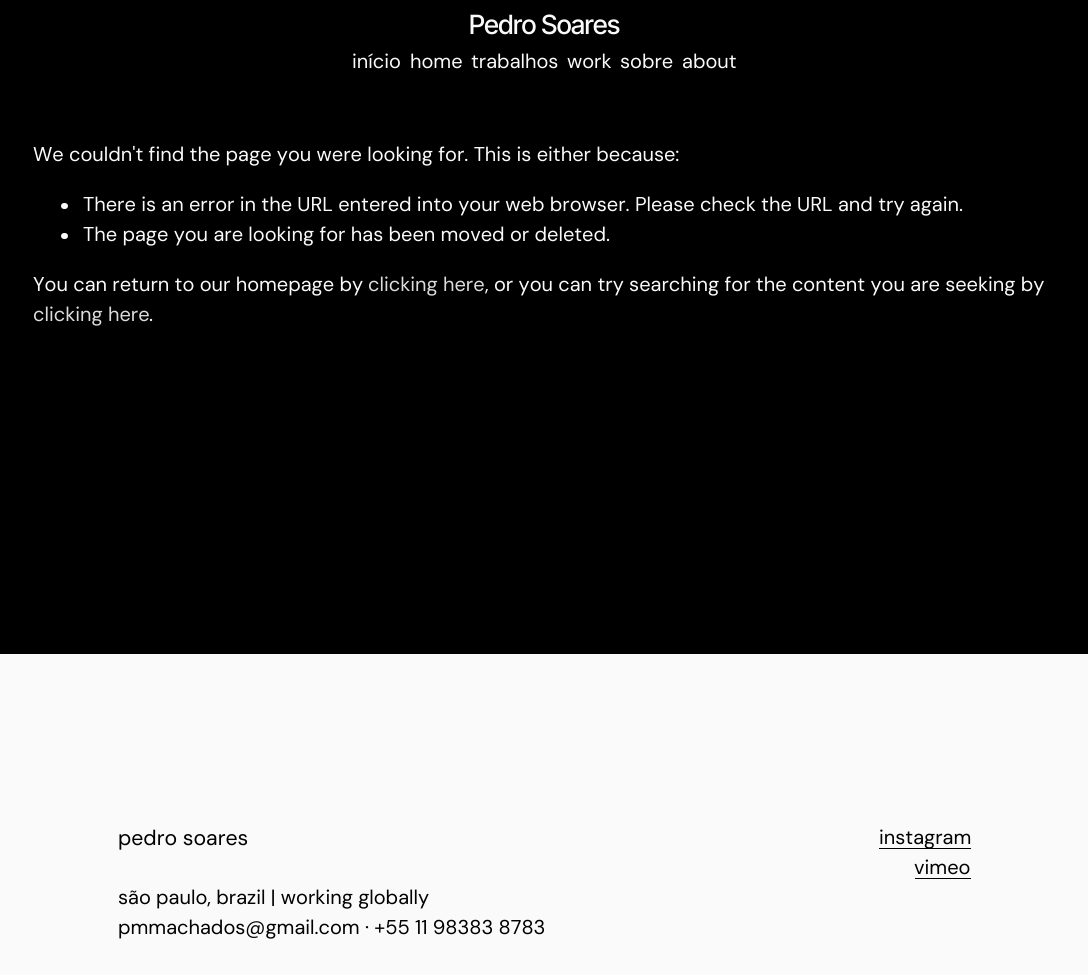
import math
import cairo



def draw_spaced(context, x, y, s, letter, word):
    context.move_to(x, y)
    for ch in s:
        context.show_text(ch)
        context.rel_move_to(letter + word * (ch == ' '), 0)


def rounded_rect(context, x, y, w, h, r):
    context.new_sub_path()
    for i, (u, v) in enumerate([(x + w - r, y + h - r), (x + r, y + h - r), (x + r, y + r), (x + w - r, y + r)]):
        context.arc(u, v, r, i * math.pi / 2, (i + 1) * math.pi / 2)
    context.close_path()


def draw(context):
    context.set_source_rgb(0, 0, 0)
    context.paint()
    context.set_source_rgb(250 / 255, 250 / 255, 250 / 255)
    rounded_rect(context, 61, 203, 7, 6, 3)
    context.fill()
    rounded_rect(context, 61, 233, 7, 6, 3)
    context.fill()
    context.rectangle(0, 654, 1088, 321)
    context.fill()
    context.set_source_rgb(0, 0, 0)
    context.rectangle(879, 848, 92, 1)
    context.fill()
    context.rectangle(915, 878, 56, 1)
    context.fill()
    context.select_font_face("Inter Tight Medium")
    context.set_font_size(26.5)
    context.set_source_rgb(250 / 255, 250 / 255, 250 / 255)
    draw_spaced(context, 469, 34, "Pedro Soares", -0.5, 0)
    context.select_font_face("DM Sans")
    context.set_font_size(20)
    context.move_to(352, 68)
    context.show_text("início")
    context.move_to(410, 68)
    context.show_text("home")
    context.move_to(471, 68)
    context.show_text("trabalhos")
    context.move_to(567, 68)
    context.show_text("work")
    context.move_to(620, 68)
    context.show_text("sobre")
    context.move_to(682, 68)
    context.show_text("about")
    context.move_to(33, 161)
    context.show_text("We couldn't find the page you were looking for. This is either because:")
    context.move_to(83, 211)
    context.show_text("There is an error in the URL entered into your web browser. Please check the URL and try again.")
    context.move_to(83, 241)
    context.show_text("The page you are looking for has been moved or deleted.")
    context.move_to(33, 291)
    context.show_text("You can return to our homepage by")
    context.set_source_rgb(220 / 255, 220 / 255, 220 / 255)
    context.move_to(368, 291)
    context.show_text("clicking here")
    context.set_source_rgb(250 / 255, 250 / 255, 250 / 255)
    context.move_to(485, 291)
    context.show_text(", or you can try searching for the content you are seeking by")
    context.set_source_rgb(220 / 255, 220 / 255, 220 / 255)
    context.move_to(33, 321)
    context.show_text("clicking here")
    context.set_source_rgb(250 / 255, 250 / 255, 250 / 255)
    context.move_to(149, 321)
    context.show_text(".")
    context.set_font_size(21.25)
    context.set_source_rgb(0, 0, 0)
    context.move_to(118, 845)
    context.show_text("pedro soares")
    context.set_font_size(20)
    context.move_to(879, 844)
    context.show_text("instagram")
    context.move_to(914, 874)
    context.show_text("vimeo")
    context.move_to(118, 904)
    context.show_text("são paulo, brazil | working globally")
    context.move_to(118, 934)
    context.show_text("pmmachados@gmail.com · +55 11 98383 8783")


surface = cairo.ImageSurface(cairo.Format.RGB24, 1088, 975)
context = cairo.Context(surface)
options = cairo.FontOptions()
options.set_hint_metrics(cairo.HintMetrics.OFF)
options.set_hint_style(cairo.HintStyle.NONE)
context.set_font_options(options)
context.set_miter_limit(4)
draw(context)
surface.write_to_png("out.png")
